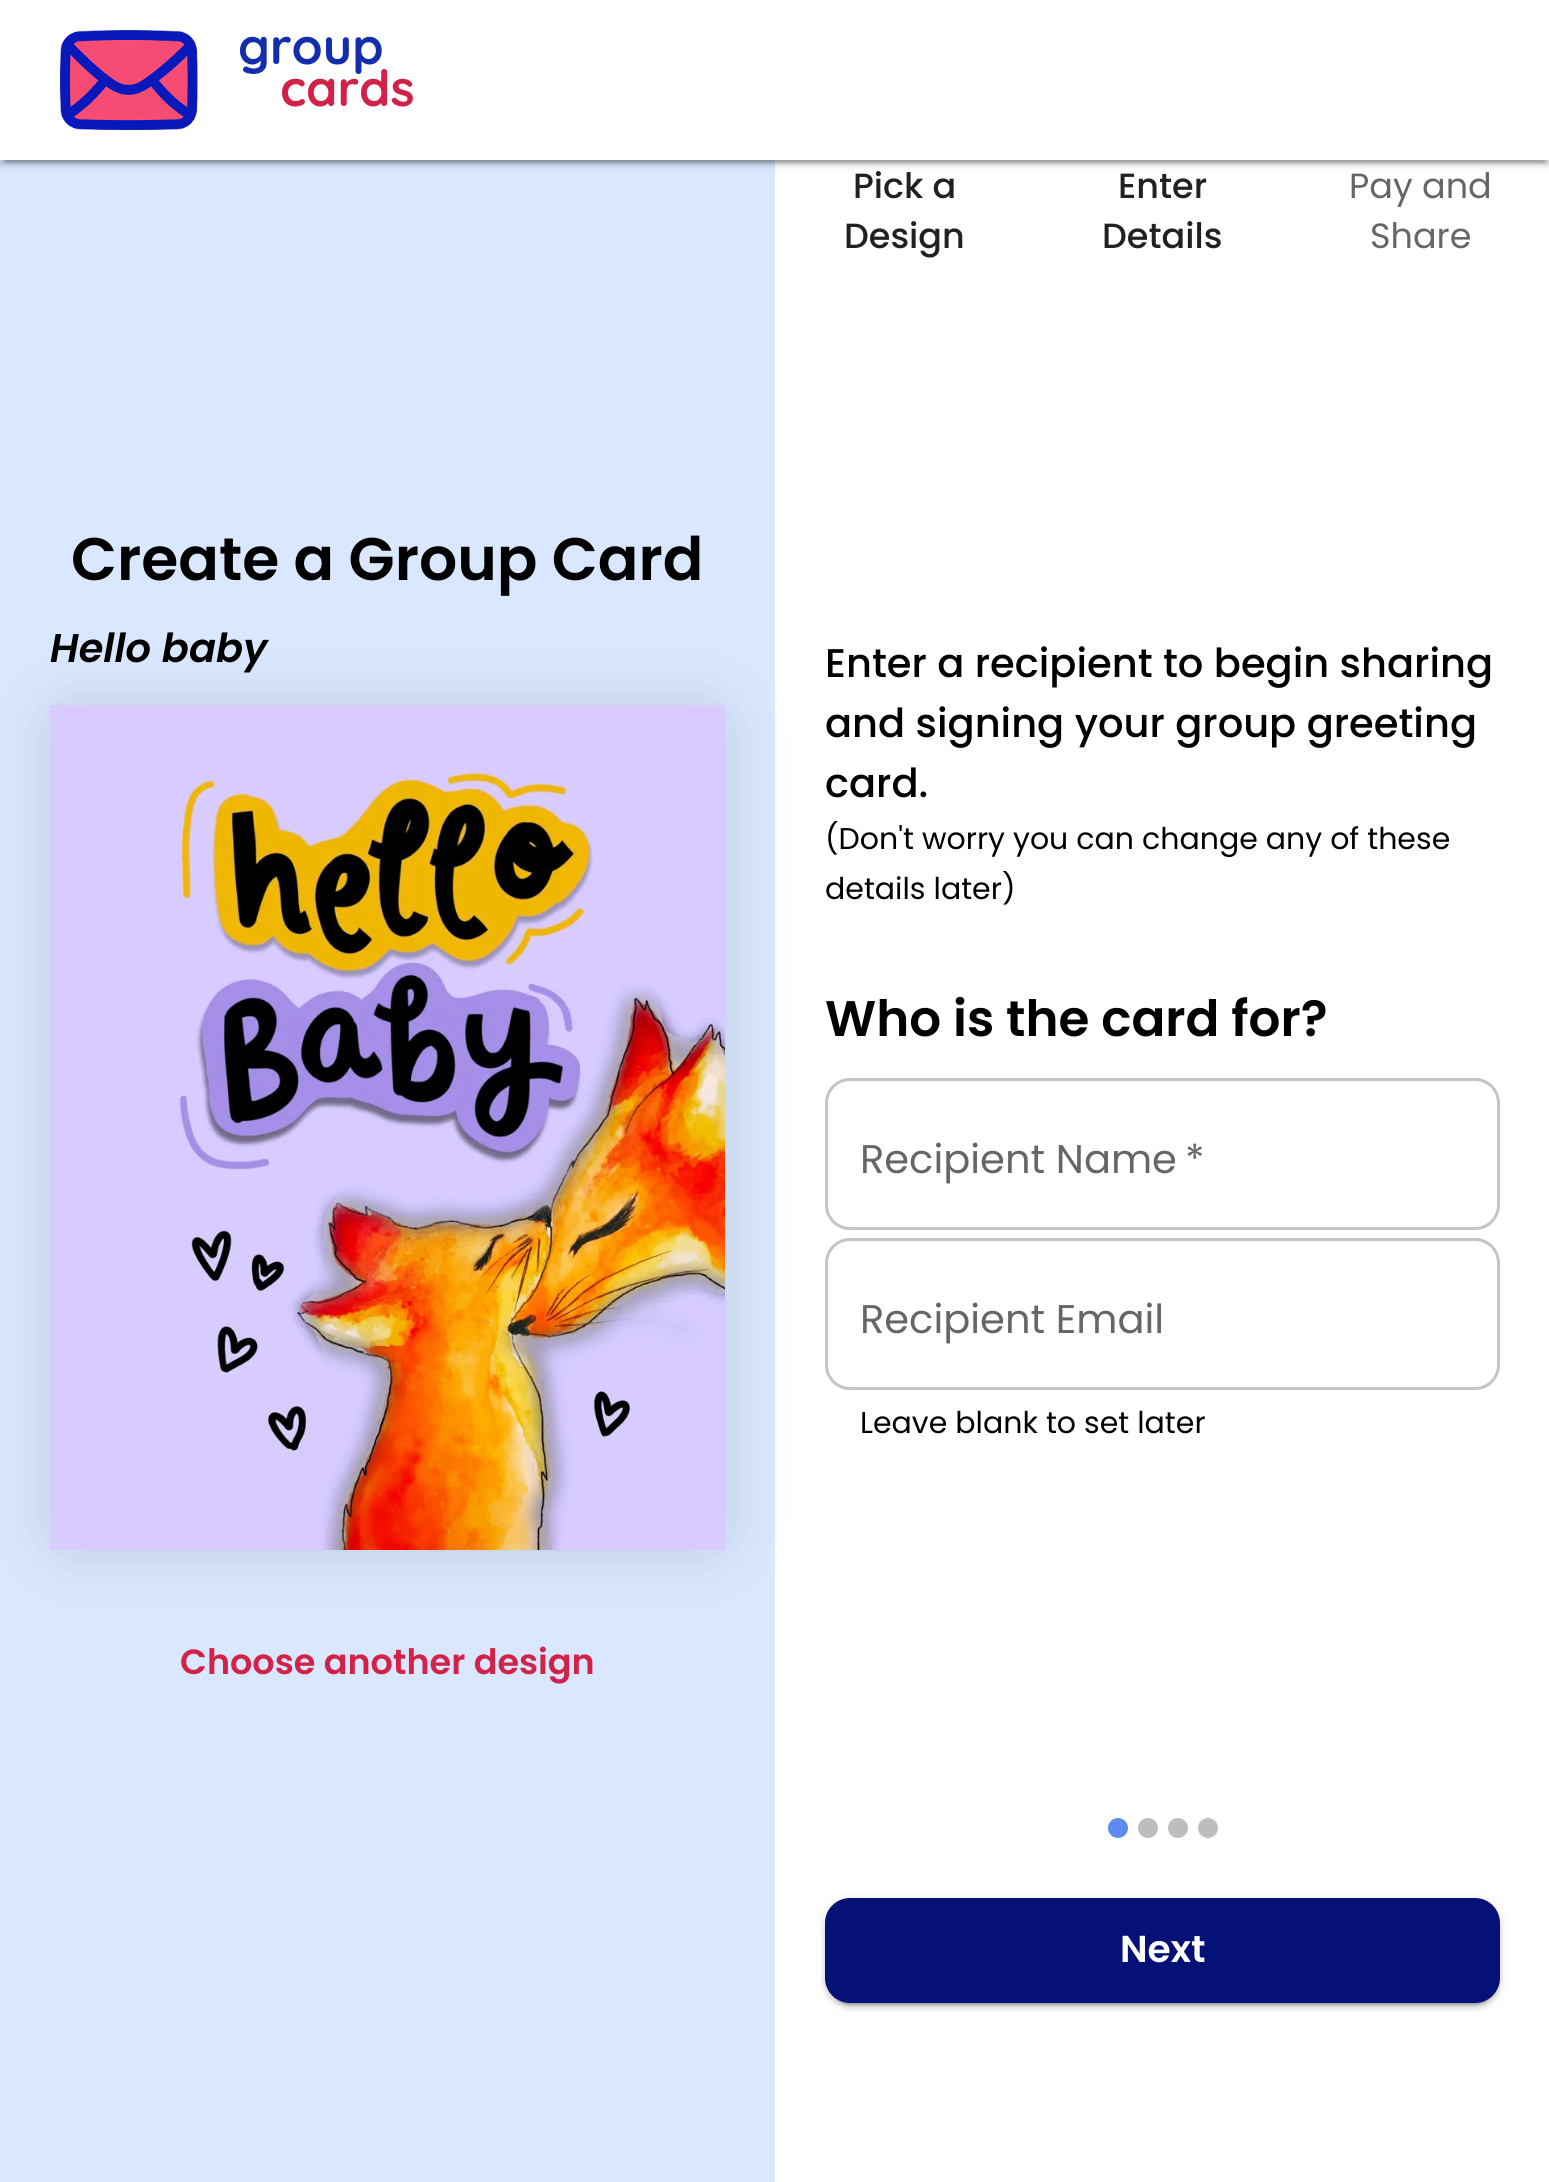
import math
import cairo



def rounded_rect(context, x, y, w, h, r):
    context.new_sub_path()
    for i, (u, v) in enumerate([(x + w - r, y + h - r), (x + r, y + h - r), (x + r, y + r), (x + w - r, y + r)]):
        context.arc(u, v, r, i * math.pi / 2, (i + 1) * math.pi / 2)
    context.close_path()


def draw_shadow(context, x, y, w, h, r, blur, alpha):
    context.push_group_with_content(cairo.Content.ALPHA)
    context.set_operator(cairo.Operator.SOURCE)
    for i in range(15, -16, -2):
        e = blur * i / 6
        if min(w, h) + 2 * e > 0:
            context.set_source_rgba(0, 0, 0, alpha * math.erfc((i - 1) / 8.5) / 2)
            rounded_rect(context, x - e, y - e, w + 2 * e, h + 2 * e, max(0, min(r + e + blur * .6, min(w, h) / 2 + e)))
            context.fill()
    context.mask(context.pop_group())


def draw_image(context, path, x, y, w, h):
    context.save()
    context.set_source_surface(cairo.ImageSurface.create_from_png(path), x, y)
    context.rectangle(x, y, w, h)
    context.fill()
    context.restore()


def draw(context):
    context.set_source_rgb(1, 1, 1)
    context.paint()
    context.set_source_rgb(217 / 255, 232 / 255, 1)
    context.rectangle(0, 160, 775, 2022)
    context.fill()
    context.set_source_rgb(0, 0, 0)
    draw_shadow(context, 0, 3, 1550, 160, 0, 6, 0.12)
    draw_shadow(context, 0, 5, 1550, 160, 0, 2.5, 0.14)
    draw_shadow(context, 5, 13, 1540, 150, 0, 1, 0.2)
    context.set_source_rgb(1, 1, 1)
    context.rectangle(0, 0, 1549, 160)
    context.fill()
    draw_image(context, "images/1.png", 60, 30, 138, 100)
    context.set_source_rgb(0, 0, 0)
    draw_shadow(context, 68, 723, 640, 810, 0, 37.5, 0.2)
    draw_image(context, "images/2.png", 50, 705, 675, 845)
    rounded_rect(context, 826.5, 1079.5, 672, 149, 23.5)
    context.set_source_rgb(196 / 255, 196 / 255, 196 / 255)
    context.set_line_width(3)
    context.stroke()
    rounded_rect(context, 826.5, 1239.5, 672, 149, 23.5)
    context.stroke()
    context.set_source_rgb(94 / 255, 138 / 255, 238 / 255)
    context.arc(1118, 1828, 10, 0, 2 * math.pi)
    context.fill()
    context.set_source_rgb(189 / 255, 189 / 255, 189 / 255)
    context.arc(1148, 1828, 10, 0, 2 * math.pi)
    context.fill()
    context.arc(1178, 1828, 10, 0, 2 * math.pi)
    context.fill()
    context.arc(1208, 1828, 10, 0, 2 * math.pi)
    context.fill()
    context.set_source_rgb(0, 0, 0)
    draw_shadow(context, 825, 1900, 675, 105, 25, 6, 0.12)
    draw_shadow(context, 825, 1903, 675, 105, 25, 2.5, 0.14)
    draw_shadow(context, 830, 1910, 665, 95, 20, 1, 0.2)
    context.set_source_rgb(6 / 255, 17 / 255, 120 / 255)
    rounded_rect(context, 825, 1898, 675, 105, 25)
    context.fill()
    context.select_font_face("Quicksand", cairo.FontSlant.NORMAL, cairo.FontWeight.BOLD)
    context.set_font_size(50)
    context.set_source_rgb(19 / 255, 45 / 255, 173 / 255)
    context.move_to(238, 64)
    context.show_text("group")
    context.set_source_rgb(211 / 255, 34 / 255, 72 / 255)
    context.move_to(280, 106)
    context.show_text("cards")
    context.select_font_face("Poppins SemiBold")
    context.set_font_size(60)
    context.set_source_rgb(0, 0, 0)
    context.move_to(71, 580)
    context.show_text("Create a Group Card")
    context.select_font_face("Poppins SemiBold", cairo.FontSlant.ITALIC)
    context.set_font_size(40)
    context.move_to(50, 662)
    context.show_text("Hello baby")
    context.select_font_face("Poppins SemiBold")
    context.set_font_size(35)
    context.set_source_rgb(211 / 255, 34 / 255, 72 / 255)
    context.move_to(180, 1674)
    context.show_text("Choose another design")
    context.select_font_face("Poppins Medium")
    context.set_source_rgb(33 / 255, 33 / 255, 33 / 255)
    context.move_to(853, 198)
    context.show_text("Pick a")
    context.move_to(844, 248)
    context.show_text("Design")
    context.move_to(1118, 198)
    context.show_text("Enter")
    context.move_to(1102, 248)
    context.show_text("Details")
    context.select_font_face("Poppins")
    context.set_source_rgb(102 / 255, 102 / 255, 102 / 255)
    context.move_to(1349, 198)
    context.show_text("Pay and")
    context.move_to(1370, 248)
    context.show_text("Share")
    context.select_font_face("Poppins Medium")
    context.set_font_size(40)
    context.set_source_rgb(0, 0, 0)
    context.move_to(825, 677)
    context.show_text("Enter a recipient to begin sharing")
    context.move_to(825, 737)
    context.show_text("and signing your group greeting")
    context.move_to(825, 797)
    context.show_text("card.")
    context.select_font_face("Poppins")
    context.set_font_size(30)
    context.move_to(825, 849)
    context.show_text("(Don't worry you can change any of these")
    context.move_to(825, 899)
    context.show_text("details later)")
    context.select_font_face("Poppins SemiBold")
    context.set_font_size(50)
    context.move_to(825, 1036)
    context.show_text("Who is the card for?")
    context.select_font_face("Poppins")
    context.set_font_size(40)
    context.set_source_rgb(102 / 255, 102 / 255, 102 / 255)
    context.move_to(860, 1173)
    context.show_text("Recipient Name")
    context.move_to(1185, 1173)
    context.show_text("*")
    context.move_to(860, 1333)
    context.show_text("Recipient Email")
    context.set_font_size(30)
    context.set_source_rgb(0, 0, 0)
    context.move_to(860, 1433)
    context.show_text("Leave blank to set later")
    context.select_font_face("Poppins SemiBold")
    context.set_font_size(37.5)
    context.set_source_rgb(1, 1, 1)
    context.move_to(1120, 1962)
    context.show_text("Next")


surface = cairo.ImageSurface(cairo.Format.RGB24, 1549, 2182)
context = cairo.Context(surface)
options = cairo.FontOptions()
options.set_hint_metrics(cairo.HintMetrics.OFF)
options.set_hint_style(cairo.HintStyle.NONE)
context.set_font_options(options)
context.set_miter_limit(4)
draw(context)
surface.write_to_png("out.png")
